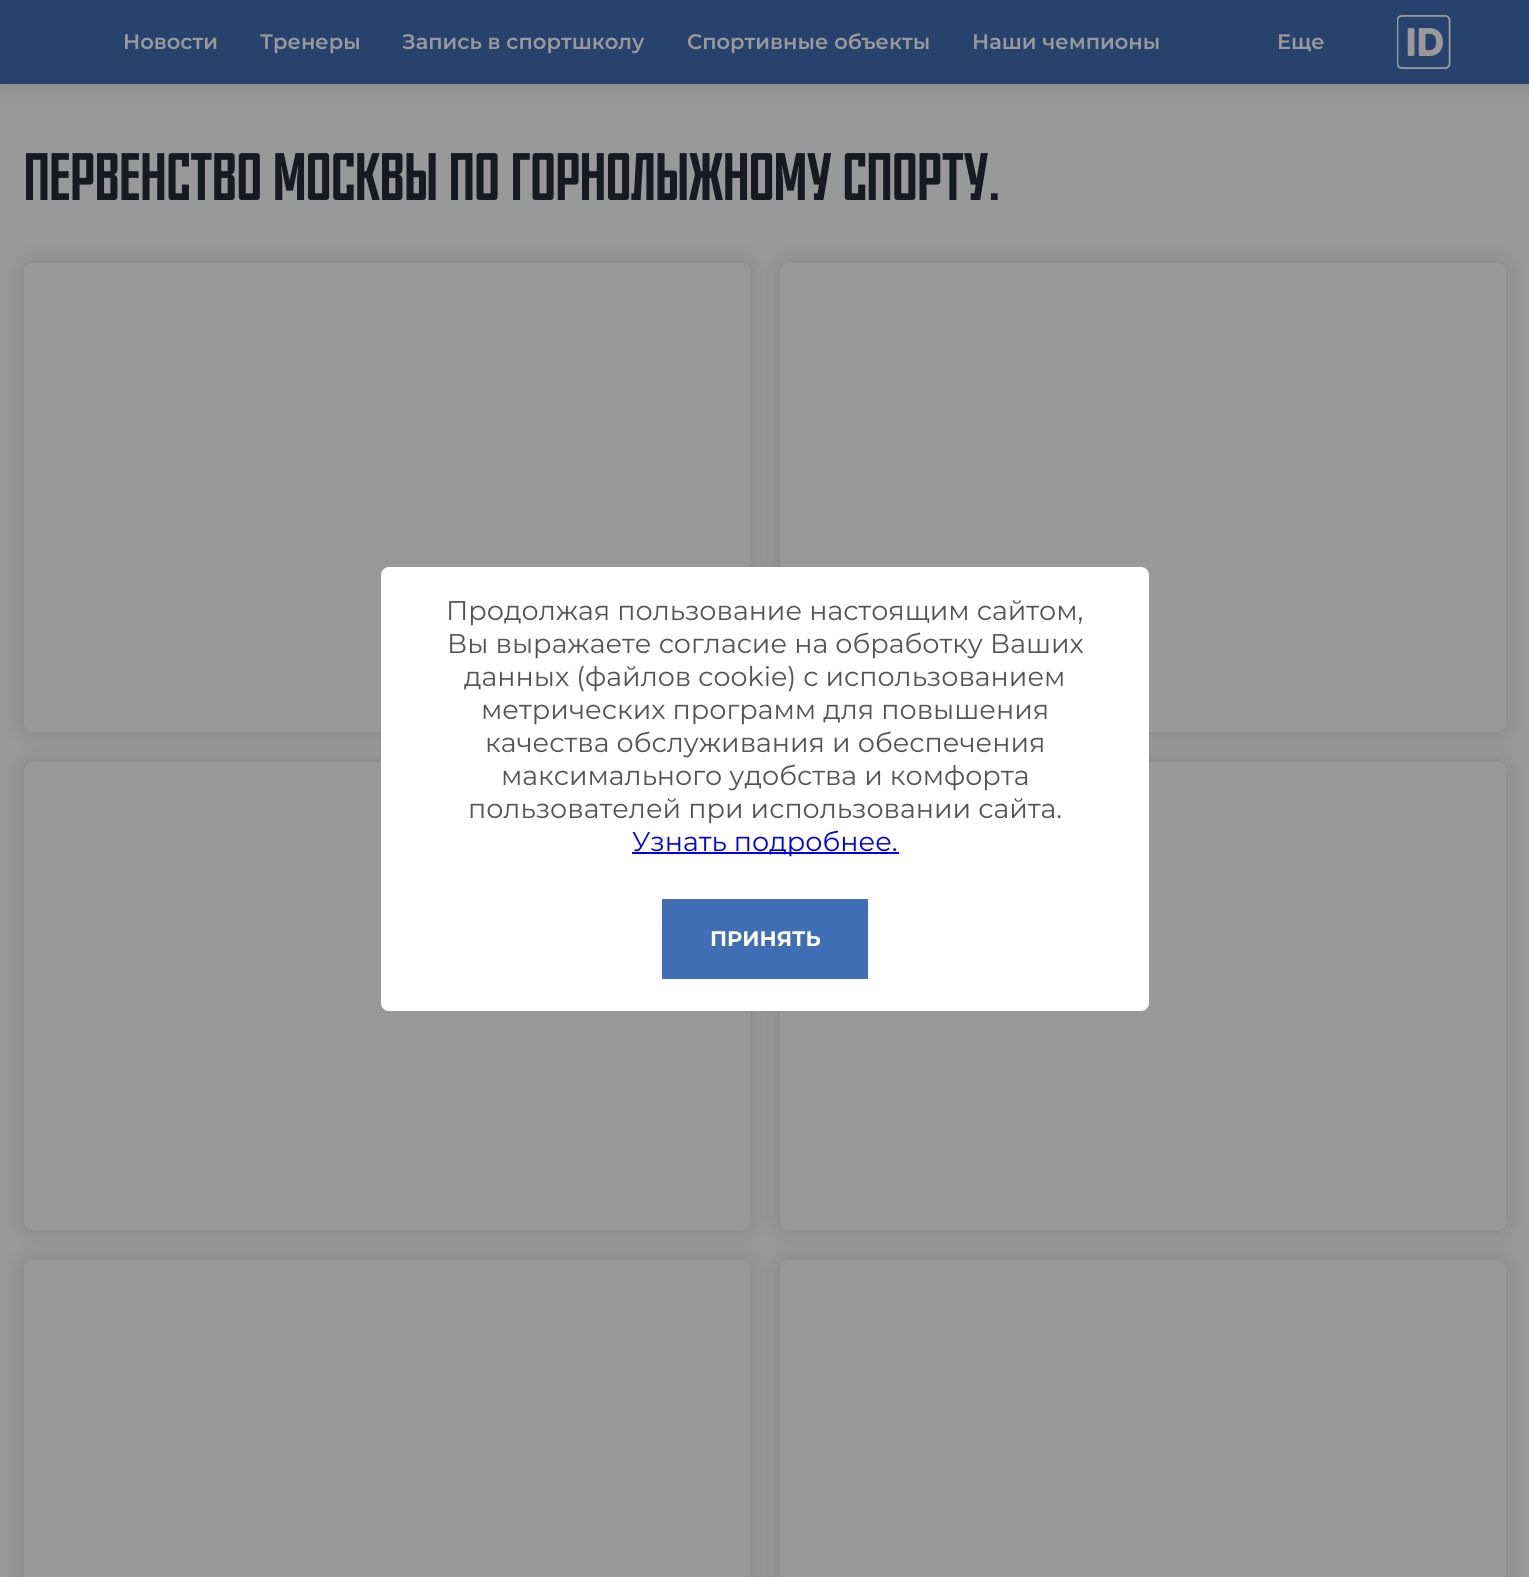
import math
import cairo



def rounded_rect(context, x, y, w, h, r):
    context.new_sub_path()
    for i, (u, v) in enumerate([(x + w - r, y + h - r), (x + r, y + h - r), (x + r, y + r), (x + w - r, y + r)]):
        context.arc(u, v, r, i * math.pi / 2, (i + 1) * math.pi / 2)
    context.close_path()


def draw_shadow(context, x, y, w, h, r, blur, alpha):
    context.push_group_with_content(cairo.Content.ALPHA)
    context.set_operator(cairo.Operator.SOURCE)
    for i in range(15, -16, -2):
        e = blur * i / 6
        if min(w, h) + 2 * e > 0:
            context.set_source_rgba(0, 0, 0, alpha * math.erfc((i - 1) / 8.5) / 2)
            rounded_rect(context, x - e, y - e, w + 2 * e, h + 2 * e, max(0, min(r + e + blur * .6, min(w, h) / 2 + e)))
            context.fill()
    context.mask(context.pop_group())


def draw_image(context, path, x, y, w, h):
    context.save()
    context.set_source_surface(cairo.ImageSurface.create_from_png(path), x, y)
    context.rectangle(x, y, w, h)
    context.fill()
    context.restore()


def draw(context):
    context.set_source_rgb(153 / 255, 153 / 255, 153 / 255)
    context.paint()
    context.set_source_rgb(0, 0, 0)
    draw_shadow(context, 0, 0, 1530, 84, 0, 11, 0.15)
    context.set_source_rgb(38 / 255, 66 / 255, 109 / 255)
    context.rectangle(0, 0, 1529, 84)
    context.fill()
    draw_image(context, "images/1.png", 1397, 15, 54, 54)
    context.set_source_rgb(0, 0, 0)
    draw_shadow(context, 24, 263, 726, 469, 8, 11, 0.15)
    context.set_source_rgb(153 / 255, 153 / 255, 153 / 255)
    rounded_rect(context, 24, 263, 726, 469, 8)
    context.fill()
    context.set_source_rgb(0, 0, 0)
    draw_shadow(context, 780, 263, 726, 469, 8, 11, 0.15)
    context.set_source_rgb(153 / 255, 153 / 255, 153 / 255)
    rounded_rect(context, 780, 263, 726, 469, 8)
    context.fill()
    context.set_source_rgb(0, 0, 0)
    draw_shadow(context, 24, 762, 726, 468, 8, 11, 0.15)
    context.set_source_rgb(153 / 255, 153 / 255, 153 / 255)
    rounded_rect(context, 24, 762, 726, 468, 8)
    context.fill()
    context.set_source_rgb(0, 0, 0)
    draw_shadow(context, 780, 762, 726, 468, 8, 11, 0.15)
    context.set_source_rgb(153 / 255, 153 / 255, 153 / 255)
    rounded_rect(context, 780, 762, 726, 468, 8)
    context.fill()
    context.set_source_rgb(0, 0, 0)
    draw_shadow(context, 24, 1260, 726, 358, 8, 11, 0.15)
    context.set_source_rgb(153 / 255, 153 / 255, 153 / 255)
    rounded_rect(context, 24, 1260, 726, 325, 8)
    context.fill()
    context.set_source_rgb(0, 0, 0)
    draw_shadow(context, 780, 1260, 726, 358, 8, 11, 0.15)
    context.set_source_rgb(153 / 255, 153 / 255, 153 / 255)
    rounded_rect(context, 780, 1260, 726, 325, 8)
    context.fill()
    context.set_source_rgb(1, 1, 1)
    rounded_rect(context, 381, 567, 768, 444, 8)
    context.fill()
    context.set_source_rgb(0, 0, 238 / 255)
    context.rectangle(632, 852, 267, 2)
    context.fill()
    context.set_source_rgb(63 / 255, 110 / 255, 181 / 255)
    context.rectangle(662, 899, 206, 80)
    context.fill()
    context.select_font_face("Montserrat SemiBold")
    context.set_font_size(21)
    context.set_source_rgb(153 / 255, 153 / 255, 153 / 255)
    context.move_to(123, 49)
    context.show_text("Новости")
    context.move_to(260, 49)
    context.show_text("Тренеры")
    context.move_to(402, 49)
    context.show_text("Запись в спортшколу")
    context.move_to(687, 49)
    context.show_text("Спортивные объекты")
    context.move_to(972, 49)
    context.show_text("Наши чемпионы")
    context.move_to(1277, 49)
    context.show_text("Еще")
    context.select_font_face("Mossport")
    context.set_font_size(67)
    context.set_source_rgb(23 / 255, 26 / 255, 33 / 255)
    context.move_to(24, 200)
    context.show_text("ПЕРВЕНСТВО МОСКВЫ ПО ГОРНОЛЫЖНОМУ СПОРТУ.")
    context.select_font_face("Montserrat")
    context.set_font_size(27)
    context.set_source_rgb(84 / 255, 84 / 255, 84 / 255)
    context.move_to(446, 620)
    context.show_text("Продолжая пользование настоящим сайтом,")
    context.move_to(447, 653)
    context.show_text("Вы выражаете согласие на обработку Ваших")
    context.move_to(464, 686)
    context.show_text("данных (файлов cookie) с использованием")
    context.move_to(481, 719)
    context.show_text("метрических программ для повышения")
    context.move_to(485, 752)
    context.show_text("качества обслуживания и обеспечения")
    context.move_to(501, 785)
    context.show_text("максимального удобства и комфорта")
    context.move_to(468, 818)
    context.show_text("пользователей при использовании сайта.")
    context.set_source_rgb(0, 0, 238 / 255)
    context.move_to(632, 851)
    context.show_text("Узнать подробнее.")
    context.select_font_face("Montserrat", cairo.FontSlant.NORMAL, cairo.FontWeight.BOLD)
    context.set_font_size(21)
    context.set_source_rgb(1, 1, 1)
    context.move_to(710, 946)
    context.show_text("ПРИНЯТЬ")


surface = cairo.ImageSurface(cairo.Format.RGB24, 1529, 1577)
context = cairo.Context(surface)
options = cairo.FontOptions()
options.set_hint_metrics(cairo.HintMetrics.OFF)
options.set_hint_style(cairo.HintStyle.NONE)
context.set_font_options(options)
context.set_miter_limit(4)
draw(context)
surface.write_to_png("out.png")
